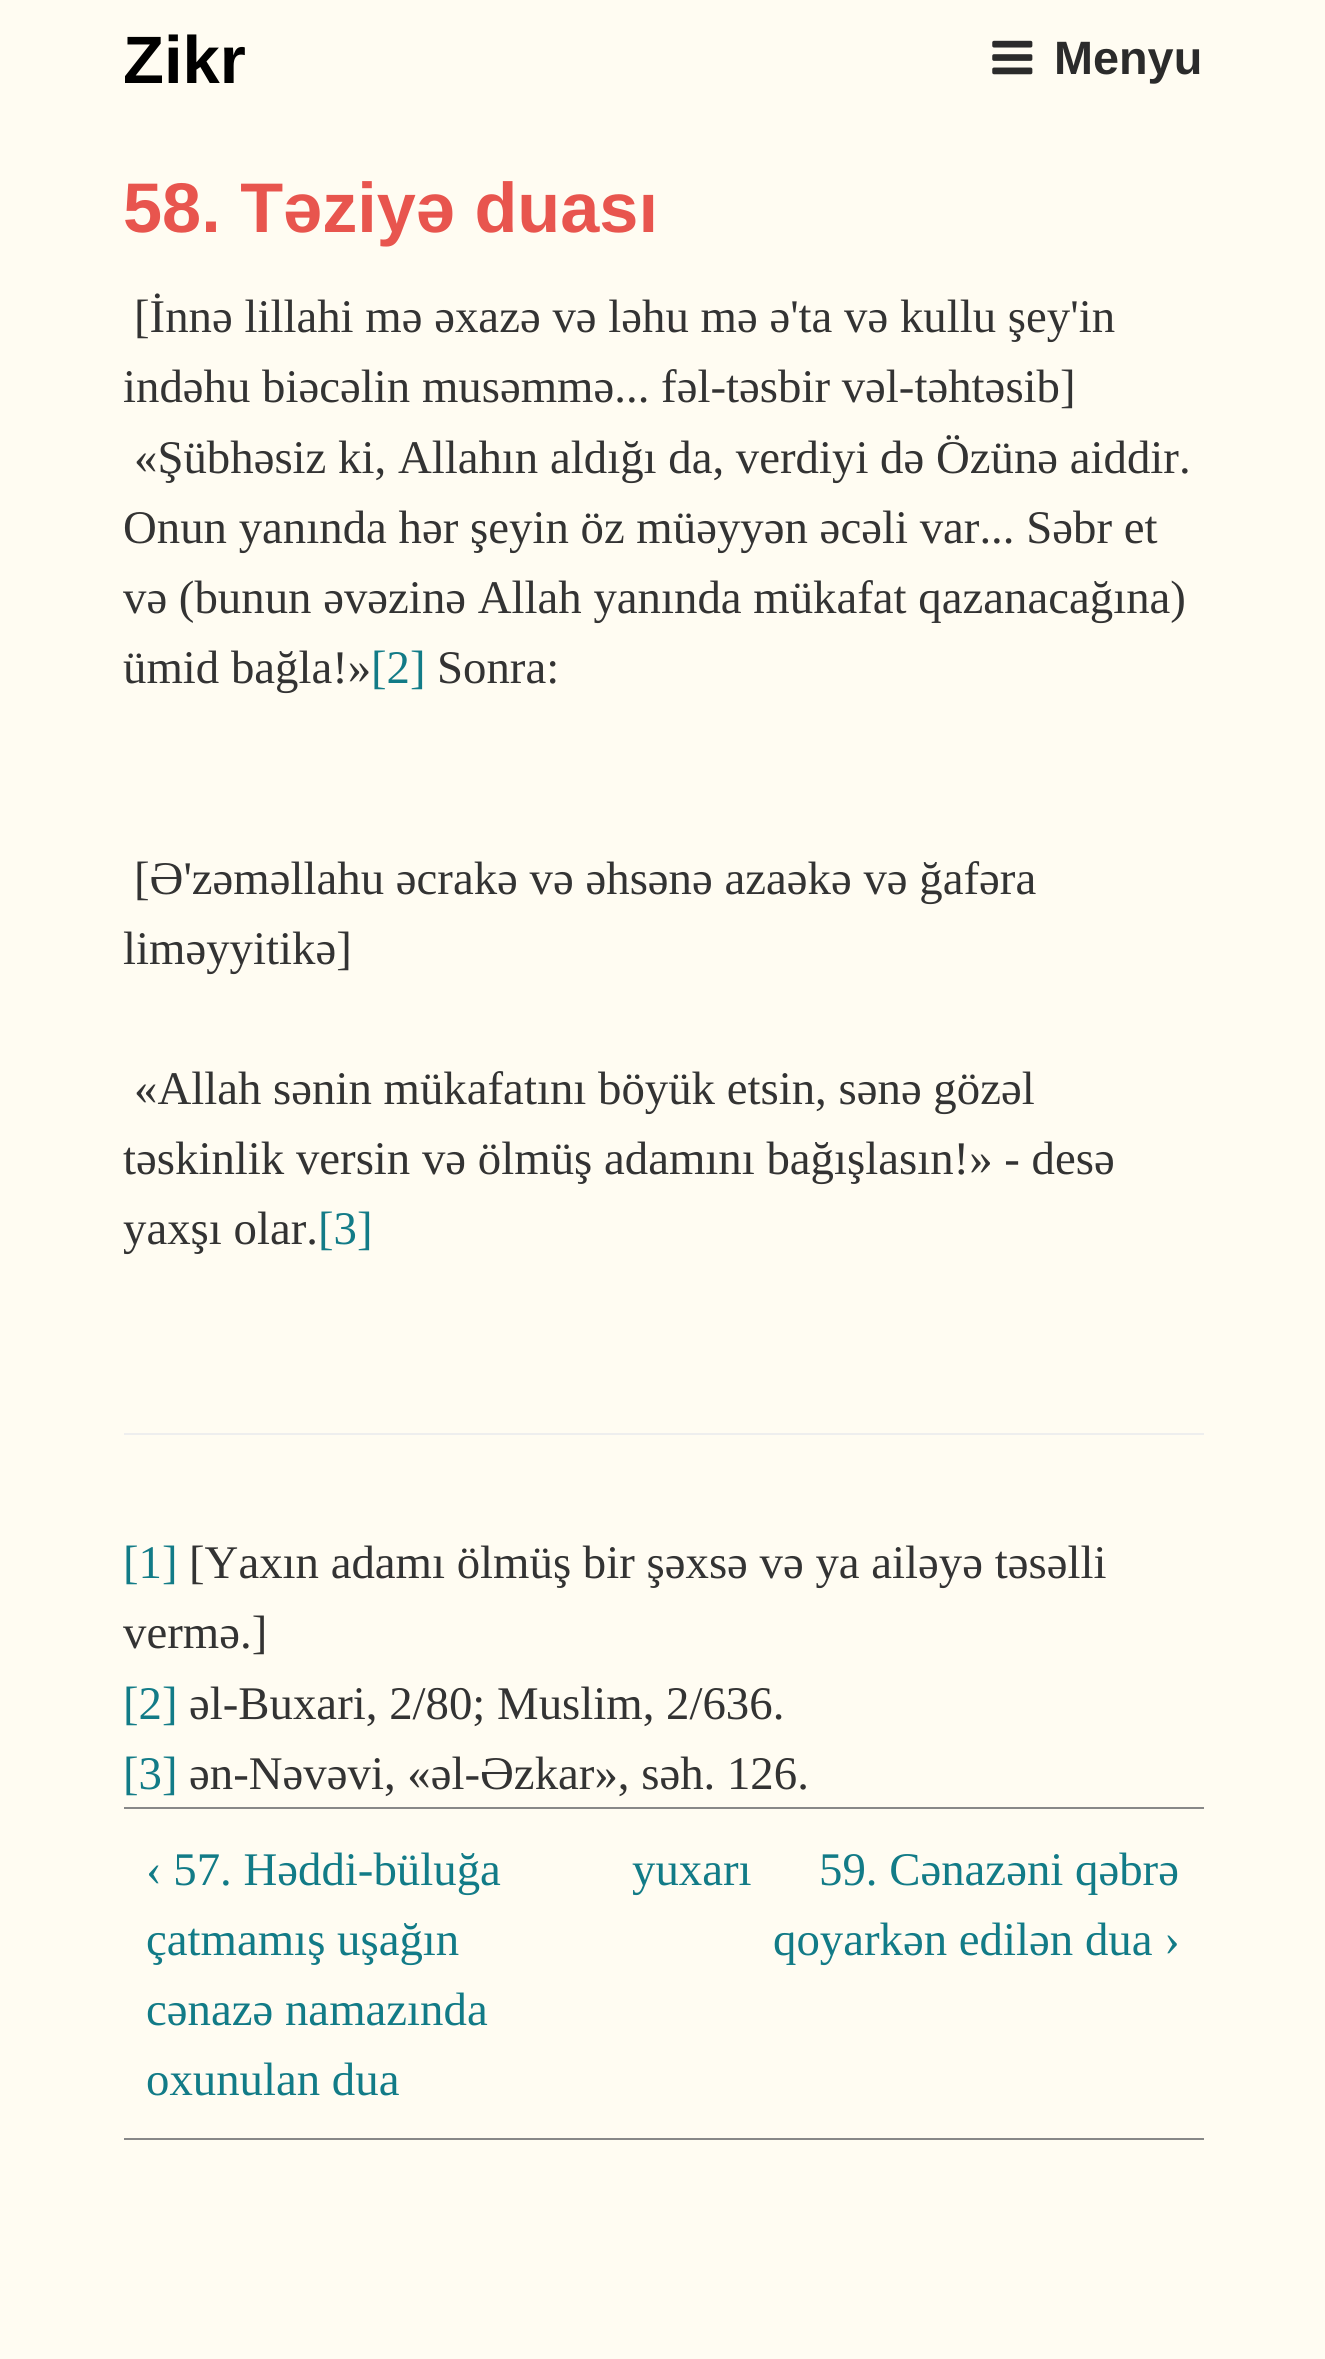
import math
import cairo



def draw_image(context, path, x, y, w, h):
    context.save()
    context.set_source_surface(cairo.ImageSurface.create_from_png(path), x, y)
    context.rectangle(x, y, w, h)
    context.fill()
    context.restore()


def draw(context):
    context.set_source_rgb(1, 252 / 255, 242 / 255)
    context.paint()
    draw_image(context, "images/1.png", 992, 40, 41, 35)
    context.set_source_rgb(238 / 255, 238 / 255, 238 / 255)
    context.rectangle(124, 1433, 1080, 2)
    context.fill()
    context.set_source_rgb(136 / 255, 136 / 255, 136 / 255)
    context.rectangle(124, 1807, 1080, 2)
    context.fill()
    context.rectangle(124, 2138, 1080, 2)
    context.fill()
    context.select_font_face("Liberation Sans", cairo.FontSlant.NORMAL, cairo.FontWeight.BOLD)
    context.set_font_size(67)
    context.set_source_rgb(0, 0, 0)
    context.move_to(123, 83)
    context.show_text("Zikr")
    context.set_font_size(46.8)
    context.set_source_rgb(43 / 255, 43 / 255, 43 / 255)
    context.move_to(1054, 74)
    context.show_text("Menyu")
    context.set_font_size(70.25)
    context.set_source_rgb(232 / 255, 85 / 255, 78 / 255)
    context.move_to(123, 232)
    context.show_text("58. Təziyə duası")
    context.select_font_face("Liberation Serif")
    context.set_font_size(46.8)
    context.set_source_rgb(51 / 255, 51 / 255, 51 / 255)
    context.move_to(134, 332)
    context.show_text("[İnnə lillahi mə əxazə və ləhu mə ə'ta və kullu şey'in")
    context.move_to(123, 402)
    context.show_text("indəhu biəcəlin musəmmə... fəl-təsbir vəl-təhtəsib]")
    context.move_to(134, 473)
    context.show_text("«Şübhəsiz ki, Allahın aldığı da, verdiyi də Özünə aiddir.")
    context.move_to(123, 543)
    context.show_text("Onun yanında hər şeyin öz müəyyən əcəli var... Səbr et")
    context.move_to(123, 613)
    context.show_text("və (bunun əvəzinə Allah yanında mükafat qazanacağına)")
    context.move_to(123, 683)
    context.show_text("ümid bağla!»")
    context.set_source_rgb(18 / 255, 123 / 255, 135 / 255)
    context.move_to(371, 683)
    context.show_text("[2]")
    context.set_source_rgb(51 / 255, 51 / 255, 51 / 255)
    context.move_to(437, 683)
    context.show_text("Sonra:")
    context.move_to(134, 894)
    context.show_text("[Ə'zəməllahu əcrakə və əhsənə azaəkə və ğafəra")
    context.move_to(123, 964)
    context.show_text("liməyyitikə]")
    context.move_to(134, 1104)
    context.show_text("«Allah sənin mükafatını böyük etsin, sənə gözəl")
    context.move_to(123, 1174)
    context.show_text("təskinlik versin və ölmüş adamını bağışlasın!» - desə")
    context.move_to(123, 1244)
    context.show_text("yaxşı olar.")
    context.set_source_rgb(18 / 255, 123 / 255, 135 / 255)
    context.move_to(318, 1244)
    context.show_text("[3]")
    context.move_to(123, 1578)
    context.show_text("[1]")
    context.set_source_rgb(51 / 255, 51 / 255, 51 / 255)
    context.move_to(189, 1578)
    context.show_text("[Yaxın adamı ölmüş bir şəxsə və ya ailəyə təsəlli")
    context.move_to(123, 1648)
    context.show_text("vermə.]")
    context.set_source_rgb(18 / 255, 123 / 255, 135 / 255)
    context.move_to(123, 1719)
    context.show_text("[2]")
    context.set_source_rgb(51 / 255, 51 / 255, 51 / 255)
    context.move_to(189, 1719)
    context.show_text("əl-Buxari, 2/80; Muslim, 2/636.")
    context.set_source_rgb(18 / 255, 123 / 255, 135 / 255)
    context.move_to(123, 1789)
    context.show_text("[3]")
    context.set_source_rgb(51 / 255, 51 / 255, 51 / 255)
    context.move_to(189, 1789)
    context.show_text("ən-Nəvəvi, «əl-Əzkar», səh. 126.")
    context.set_source_rgb(18 / 255, 123 / 255, 135 / 255)
    context.move_to(146, 1885)
    context.show_text("‹ 57. Həddi-büluğa")
    context.move_to(146, 1955)
    context.show_text("çatmamış uşağın")
    context.move_to(146, 2025)
    context.show_text("cənazə namazında")
    context.move_to(146, 2095)
    context.show_text("oxunulan dua")
    context.move_to(632, 1885)
    context.show_text("yuxarı")
    context.move_to(819, 1885)
    context.show_text("59. Cənazəni qəbrə")
    context.move_to(773, 1955)
    context.show_text("qoyarkən edilən dua ›")


surface = cairo.ImageSurface(cairo.Format.RGB24, 1325, 2359)
context = cairo.Context(surface)
options = cairo.FontOptions()
options.set_hint_metrics(cairo.HintMetrics.OFF)
options.set_hint_style(cairo.HintStyle.NONE)
context.set_font_options(options)
context.set_miter_limit(4)
draw(context)
surface.write_to_png("out.png")
